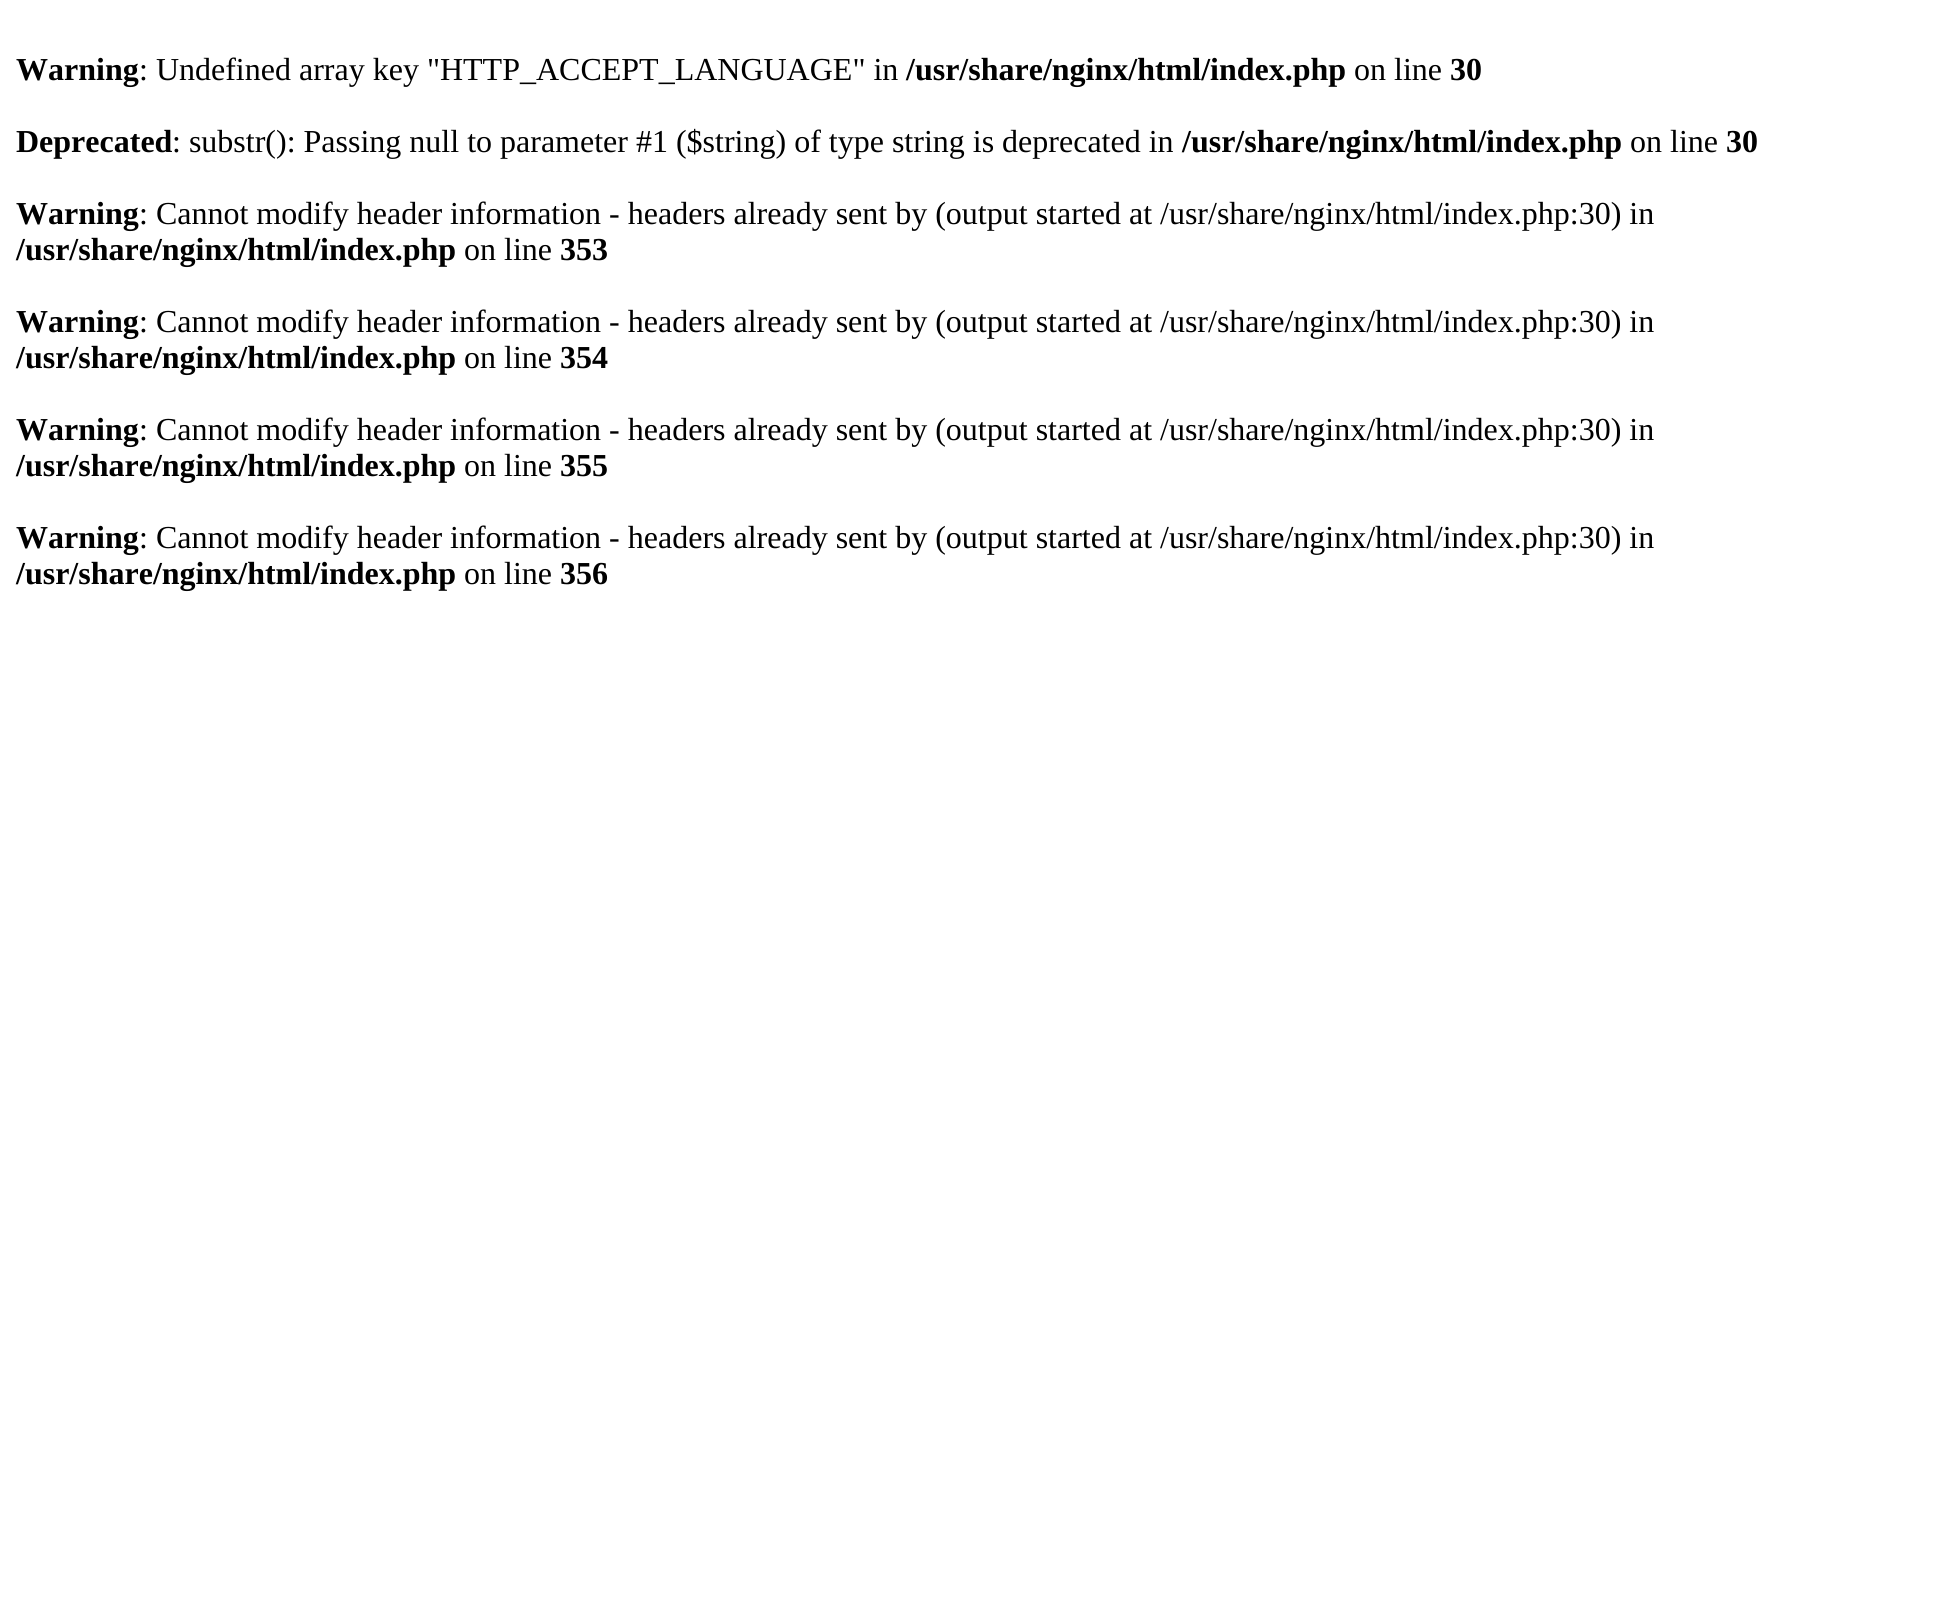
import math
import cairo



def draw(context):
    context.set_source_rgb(1, 1, 1)
    context.paint()
    context.select_font_face("Liberation Serif", cairo.FontSlant.NORMAL, cairo.FontWeight.BOLD)
    context.set_font_size(32)
    context.set_source_rgb(0, 0, 0)
    context.move_to(16, 80)
    context.show_text("Warning")
    context.select_font_face("Liberation Serif")
    context.move_to(139, 80)
    context.show_text(": Undefined array key \"HTTP_ACCEPT_LANGUAGE\" in")
    context.select_font_face("Liberation Serif", cairo.FontSlant.NORMAL, cairo.FontWeight.BOLD)
    context.move_to(906, 80)
    context.show_text("/usr/share/nginx/html/index.php")
    context.select_font_face("Liberation Serif")
    context.move_to(1354, 80)
    context.show_text("on line")
    context.select_font_face("Liberation Serif", cairo.FontSlant.NORMAL, cairo.FontWeight.BOLD)
    context.move_to(1450, 80)
    context.show_text("30")
    context.move_to(16, 152)
    context.show_text("Deprecated")
    context.select_font_face("Liberation Serif")
    context.move_to(172, 152)
    context.show_text(": substr(): Passing null to parameter #1 ($string) of type string is deprecated in")
    context.select_font_face("Liberation Serif", cairo.FontSlant.NORMAL, cairo.FontWeight.BOLD)
    context.move_to(1182, 152)
    context.show_text("/usr/share/nginx/html/index.php")
    context.select_font_face("Liberation Serif")
    context.move_to(1630, 152)
    context.show_text("on line")
    context.select_font_face("Liberation Serif", cairo.FontSlant.NORMAL, cairo.FontWeight.BOLD)
    context.move_to(1726, 152)
    context.show_text("30")
    context.move_to(16, 224)
    context.show_text("Warning")
    context.select_font_face("Liberation Serif")
    context.move_to(139, 224)
    context.show_text(": Cannot modify header information - headers already sent by (output started at /usr/share/nginx/html/index.php:30) in")
    context.select_font_face("Liberation Serif", cairo.FontSlant.NORMAL, cairo.FontWeight.BOLD)
    context.move_to(16, 260)
    context.show_text("/usr/share/nginx/html/index.php")
    context.select_font_face("Liberation Serif")
    context.move_to(464, 260)
    context.show_text("on line")
    context.select_font_face("Liberation Serif", cairo.FontSlant.NORMAL, cairo.FontWeight.BOLD)
    context.move_to(560, 260)
    context.show_text("353")
    context.move_to(16, 332)
    context.show_text("Warning")
    context.select_font_face("Liberation Serif")
    context.move_to(139, 332)
    context.show_text(": Cannot modify header information - headers already sent by (output started at /usr/share/nginx/html/index.php:30) in")
    context.select_font_face("Liberation Serif", cairo.FontSlant.NORMAL, cairo.FontWeight.BOLD)
    context.move_to(16, 368)
    context.show_text("/usr/share/nginx/html/index.php")
    context.select_font_face("Liberation Serif")
    context.move_to(464, 368)
    context.show_text("on line")
    context.select_font_face("Liberation Serif", cairo.FontSlant.NORMAL, cairo.FontWeight.BOLD)
    context.move_to(560, 368)
    context.show_text("354")
    context.move_to(16, 440)
    context.show_text("Warning")
    context.select_font_face("Liberation Serif")
    context.move_to(139, 440)
    context.show_text(": Cannot modify header information - headers already sent by (output started at /usr/share/nginx/html/index.php:30) in")
    context.select_font_face("Liberation Serif", cairo.FontSlant.NORMAL, cairo.FontWeight.BOLD)
    context.move_to(16, 476)
    context.show_text("/usr/share/nginx/html/index.php")
    context.select_font_face("Liberation Serif")
    context.move_to(464, 476)
    context.show_text("on line")
    context.select_font_face("Liberation Serif", cairo.FontSlant.NORMAL, cairo.FontWeight.BOLD)
    context.move_to(560, 476)
    context.show_text("355")
    context.move_to(16, 548)
    context.show_text("Warning")
    context.select_font_face("Liberation Serif")
    context.move_to(139, 548)
    context.show_text(": Cannot modify header information - headers already sent by (output started at /usr/share/nginx/html/index.php:30) in")
    context.select_font_face("Liberation Serif", cairo.FontSlant.NORMAL, cairo.FontWeight.BOLD)
    context.move_to(16, 584)
    context.show_text("/usr/share/nginx/html/index.php")
    context.select_font_face("Liberation Serif")
    context.move_to(464, 584)
    context.show_text("on line")
    context.select_font_face("Liberation Serif", cairo.FontSlant.NORMAL, cairo.FontWeight.BOLD)
    context.move_to(560, 584)
    context.show_text("356")


surface = cairo.ImageSurface(cairo.Format.RGB24, 1951, 1607)
context = cairo.Context(surface)
options = cairo.FontOptions()
options.set_hint_metrics(cairo.HintMetrics.OFF)
options.set_hint_style(cairo.HintStyle.NONE)
context.set_font_options(options)
context.set_miter_limit(4)
draw(context)
surface.write_to_png("out.png")
